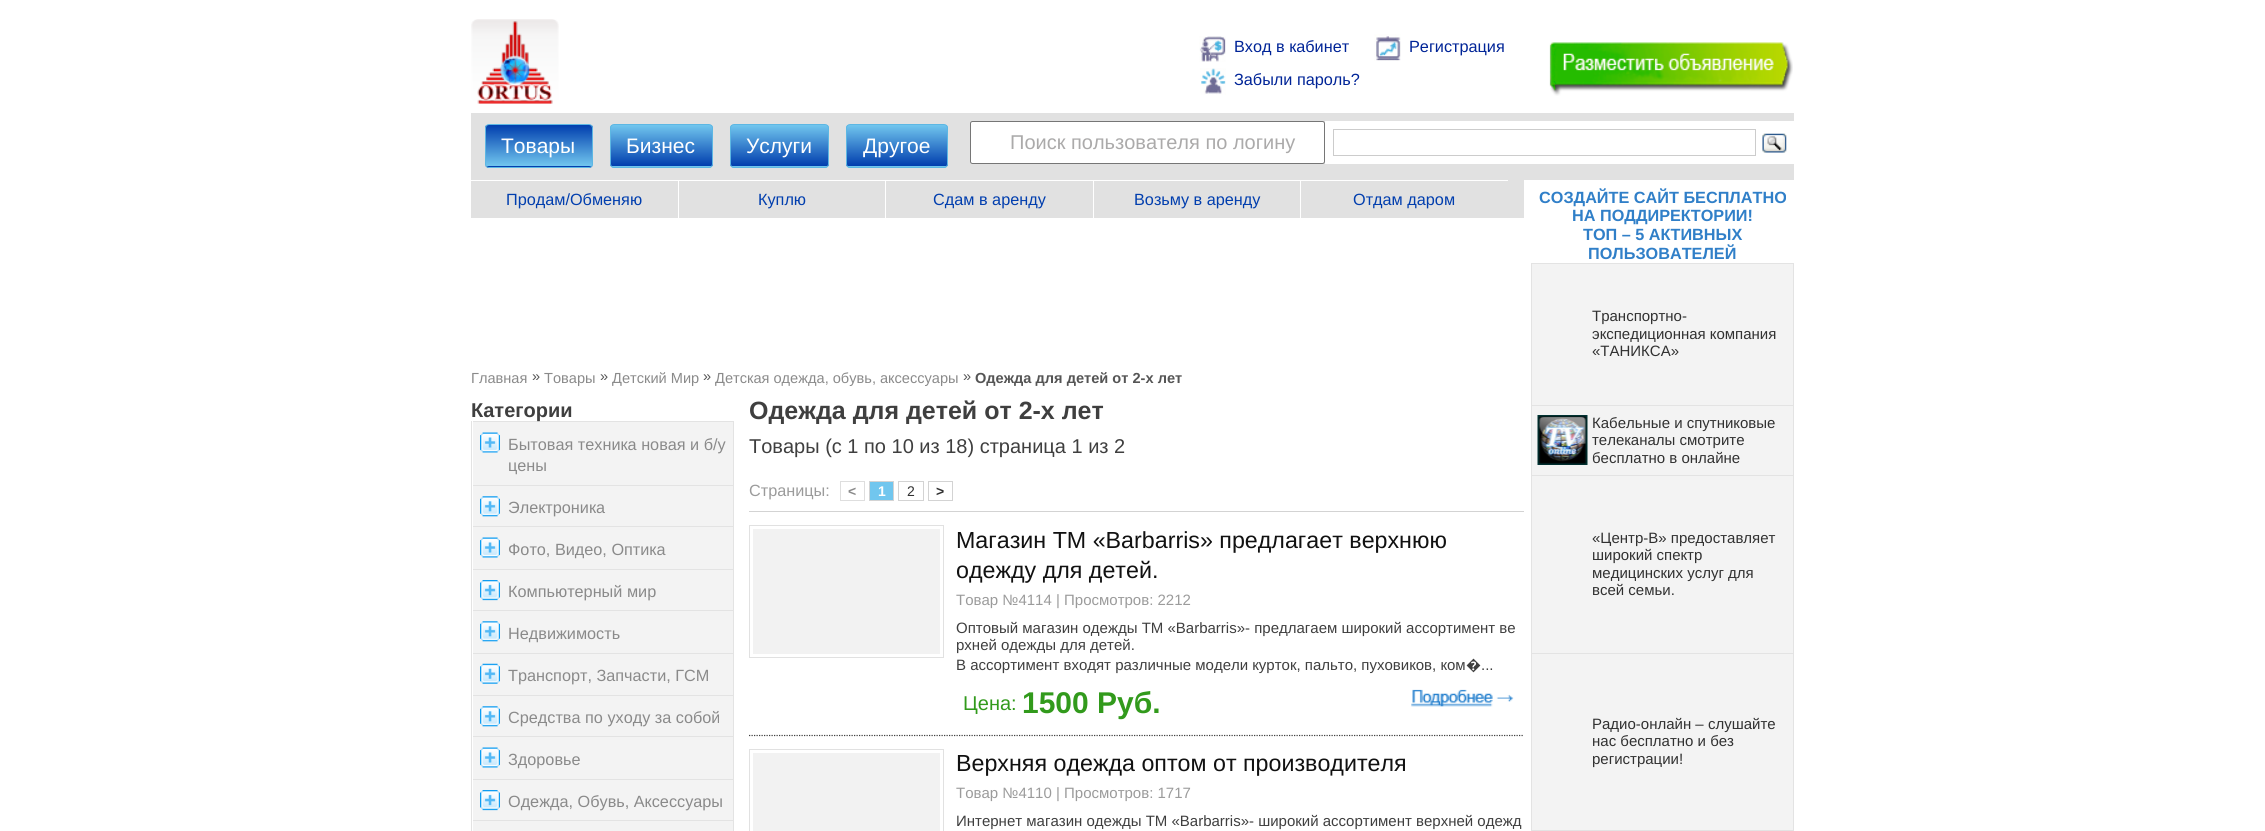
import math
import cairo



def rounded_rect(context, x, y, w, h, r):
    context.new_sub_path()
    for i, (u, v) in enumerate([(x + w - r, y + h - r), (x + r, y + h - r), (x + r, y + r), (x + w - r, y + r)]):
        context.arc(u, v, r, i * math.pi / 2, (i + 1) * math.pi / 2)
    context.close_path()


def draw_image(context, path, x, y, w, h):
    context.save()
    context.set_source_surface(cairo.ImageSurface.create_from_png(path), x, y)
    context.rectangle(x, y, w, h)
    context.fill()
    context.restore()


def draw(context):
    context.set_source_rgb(1, 1, 1)
    context.paint()
    draw_image(context, "images/1.png", 471, 19, 88, 85)
    draw_image(context, "images/2.png", 1199, 36, 27, 26)
    draw_image(context, "images/3.png", 1374, 34, 27, 27)
    draw_image(context, "images/4.png", 1549, 42, 244, 54)
    draw_image(context, "images/5.png", 1200, 68, 26, 27)
    context.set_source_rgb(225 / 255, 225 / 255, 225 / 255)
    context.rectangle(471, 113, 1323, 67)
    context.fill()
    context.save()
    rounded_rect(context, 485, 124, 108, 44, 4)
    context.clip()
    gradient = cairo.LinearGradient(486, 125, 486, 166)
    gradient.add_color_stop_rgba(0, 1 / 255, 62 / 255, 174 / 255, 1)
    gradient.add_color_stop_rgba(1, 113 / 255, 198 / 255, 238 / 255, 1)
    context.set_source(gradient)
    context.rectangle(485, 125, 108, 41)
    context.fill()
    gradient = cairo.LinearGradient(486, 166, 486, 208)
    gradient.add_color_stop_rgba(0, 1 / 255, 62 / 255, 174 / 255, 1)
    gradient.add_color_stop_rgba(1, 113 / 255, 198 / 255, 238 / 255, 1)
    context.set_source(gradient)
    context.rectangle(485, 166, 108, 2)
    context.fill()
    context.restore()
    rounded_rect(context, 485.5, 124.5, 107, 43, 3.5)
    context.set_source_rgb(93 / 255, 183 / 255, 227 / 255)
    context.set_line_width(1)
    context.stroke()
    context.save()
    rounded_rect(context, 610, 124, 103, 44, 4)
    context.clip()
    gradient = cairo.LinearGradient(611, 125, 611, 166)
    gradient.add_color_stop_rgba(0, 113 / 255, 198 / 255, 238 / 255, 1)
    gradient.add_color_stop_rgba(1, 1 / 255, 62 / 255, 174 / 255, 1)
    context.set_source(gradient)
    context.rectangle(610, 125, 103, 41)
    context.fill()
    gradient = cairo.LinearGradient(611, 166, 611, 208)
    gradient.add_color_stop_rgba(0, 113 / 255, 198 / 255, 238 / 255, 1)
    gradient.add_color_stop_rgba(1, 1 / 255, 62 / 255, 174 / 255, 1)
    context.set_source(gradient)
    context.rectangle(610, 166, 103, 2)
    context.fill()
    context.restore()
    rounded_rect(context, 610.5, 124.5, 102, 43, 3.5)
    context.stroke()
    context.save()
    rounded_rect(context, 730, 124, 99, 44, 4)
    context.clip()
    gradient = cairo.LinearGradient(731, 125, 731, 166)
    gradient.add_color_stop_rgba(0, 113 / 255, 198 / 255, 238 / 255, 1)
    gradient.add_color_stop_rgba(1, 1 / 255, 62 / 255, 174 / 255, 1)
    context.set_source(gradient)
    context.rectangle(730, 125, 99, 41)
    context.fill()
    gradient = cairo.LinearGradient(731, 166, 731, 208)
    gradient.add_color_stop_rgba(0, 113 / 255, 198 / 255, 238 / 255, 1)
    gradient.add_color_stop_rgba(1, 1 / 255, 62 / 255, 174 / 255, 1)
    context.set_source(gradient)
    context.rectangle(730, 166, 99, 2)
    context.fill()
    context.restore()
    rounded_rect(context, 730.5, 124.5, 98, 43, 3.5)
    context.stroke()
    context.save()
    rounded_rect(context, 846, 124, 102, 44, 4)
    context.clip()
    gradient = cairo.LinearGradient(848, 125, 848, 166)
    gradient.add_color_stop_rgba(0, 113 / 255, 198 / 255, 238 / 255, 1)
    gradient.add_color_stop_rgba(1, 1 / 255, 62 / 255, 174 / 255, 1)
    context.set_source(gradient)
    context.rectangle(846, 125, 102, 41)
    context.fill()
    gradient = cairo.LinearGradient(848, 166, 848, 208)
    gradient.add_color_stop_rgba(0, 113 / 255, 198 / 255, 238 / 255, 1)
    gradient.add_color_stop_rgba(1, 1 / 255, 62 / 255, 174 / 255, 1)
    context.set_source(gradient)
    context.rectangle(846, 166, 102, 2)
    context.fill()
    context.restore()
    rounded_rect(context, 846.5, 124.5, 101, 43, 3.5)
    context.stroke()
    context.set_source_rgb(1, 1, 1)
    rounded_rect(context, 970.5, 121.5, 354, 42, 2)
    context.fill_preserve()
    context.set_source_rgb(118 / 255, 118 / 255, 118 / 255)
    context.stroke()
    context.set_source_rgb(1, 1, 1)
    context.rectangle(1325, 121, 469, 43)
    context.fill()
    context.rectangle(1333.5, 129.5, 422, 26)
    context.set_source_rgb(204 / 255, 204 / 255, 204 / 255)
    context.stroke()
    draw_image(context, "images/6.png", 1762, 133, 25, 20)
    context.set_source_rgb(225 / 255, 225 / 255, 225 / 255)
    context.rectangle(471, 180, 1053, 38)
    context.fill()
    context.set_source_rgb(1, 1, 1)
    context.rectangle(471, 180, 1037, 1)
    context.fill()
    context.rectangle(678, 180, 1, 38)
    context.fill()
    context.rectangle(885, 180, 1, 38)
    context.fill()
    context.rectangle(1093, 180, 1, 38)
    context.fill()
    context.rectangle(1300, 180, 1, 38)
    context.fill()
    context.set_source_rgb(227 / 255, 227 / 255, 227 / 255)
    context.rectangle(733, 421, 1, 410)
    context.fill()
    context.rectangle(471, 421, 1, 410)
    context.fill()
    context.set_source_rgb(243 / 255, 243 / 255, 243 / 255)
    context.rectangle(473, 422, 260, 409)
    context.fill()
    context.set_source_rgb(227 / 255, 227 / 255, 227 / 255)
    context.rectangle(473, 421, 260, 1)
    context.fill()
    draw_image(context, "images/7.png", 480, 432, 20, 21)
    context.rectangle(473, 485, 260, 1)
    context.fill()
    draw_image(context, "images/8.png", 480, 496, 20, 21)
    context.rectangle(473, 526, 260, 1)
    context.fill()
    draw_image(context, "images/7.png", 480, 537, 20, 21)
    context.rectangle(473, 569, 260, 1)
    context.fill()
    draw_image(context, "images/9.png", 480, 580, 20, 21)
    context.rectangle(473, 610, 260, 1)
    context.fill()
    draw_image(context, "images/8.png", 480, 621, 20, 21)
    context.rectangle(473, 653, 260, 1)
    context.fill()
    draw_image(context, "images/10.png", 480, 663, 20, 21)
    context.rectangle(473, 695, 260, 1)
    context.fill()
    draw_image(context, "images/8.png", 480, 706, 20, 21)
    context.rectangle(473, 736, 260, 1)
    context.fill()
    draw_image(context, "images/7.png", 480, 747, 20, 21)
    context.rectangle(473, 779, 260, 1)
    context.fill()
    draw_image(context, "images/11.png", 480, 790, 20, 21)
    context.rectangle(473, 820, 260, 1)
    context.fill()
    context.rectangle(840.5, 481.5, 24, 19)
    context.set_source_rgb(222 / 255, 222 / 255, 222 / 255)
    context.stroke()
    context.set_source_rgb(113 / 255, 198 / 255, 238 / 255)
    context.rectangle(869.5, 481.5, 24, 19)
    context.fill_preserve()
    context.set_source_rgb(211 / 255, 211 / 255, 211 / 255)
    context.stroke()
    context.rectangle(898.5, 481.5, 25, 19)
    context.stroke()
    context.rectangle(928.5, 481.5, 24, 19)
    context.stroke()
    context.rectangle(749, 511, 775, 1)
    context.fill()
    context.new_path()
    context.move_to(749, 735.5)
    context.line_to(1524, 735.5)
    context.set_source_rgb(63 / 255, 63 / 255, 63 / 255)
    context.set_line_width(1.2)
    context.set_dash([1.25, 1.25])
    context.stroke()
    context.rectangle(749.5, 525.5, 194, 132)
    context.set_source_rgb(225 / 255, 225 / 255, 225 / 255)
    context.set_line_width(1)
    context.set_dash([])
    context.stroke()
    context.set_source_rgb(242 / 255, 242 / 255, 242 / 255)
    context.rectangle(753, 529, 187, 125)
    context.fill()
    draw_image(context, "images/12.png", 1411, 689, 103, 18)
    context.rectangle(749.5, 749.5, 194, 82)
    context.set_source_rgb(225 / 255, 225 / 255, 225 / 255)
    context.stroke()
    context.set_source_rgb(242 / 255, 242 / 255, 242 / 255)
    context.rectangle(753, 753, 187, 78)
    context.fill()
    context.set_source_rgb(243 / 255, 243 / 255, 243 / 255)
    context.rectangle(1532, 264, 261, 141)
    context.fill()
    context.set_source_rgb(227 / 255, 227 / 255, 227 / 255)
    context.rectangle(1531, 263, 263, 1)
    context.fill()
    context.rectangle(1793, 263, 1, 142)
    context.fill()
    context.rectangle(1531, 263, 1, 142)
    context.fill()
    context.set_source_rgb(243 / 255, 243 / 255, 243 / 255)
    context.rectangle(1532, 406, 261, 69)
    context.fill()
    context.set_source_rgb(227 / 255, 227 / 255, 227 / 255)
    context.rectangle(1531, 405, 263, 1)
    context.fill()
    context.rectangle(1793, 405, 1, 70)
    context.fill()
    context.rectangle(1531, 405, 1, 70)
    context.fill()
    draw_image(context, "images/13.png", 1537, 415, 51, 50)
    context.set_source_rgb(243 / 255, 243 / 255, 243 / 255)
    context.rectangle(1532, 476, 261, 177)
    context.fill()
    context.set_source_rgb(227 / 255, 227 / 255, 227 / 255)
    context.rectangle(1531, 475, 263, 1)
    context.fill()
    context.rectangle(1793, 475, 1, 178)
    context.fill()
    context.rectangle(1531, 475, 1, 178)
    context.fill()
    context.set_source_rgb(243 / 255, 243 / 255, 243 / 255)
    context.rectangle(1532, 654, 261, 176)
    context.fill()
    context.set_source_rgb(227 / 255, 227 / 255, 227 / 255)
    context.rectangle(1531, 653, 263, 1)
    context.fill()
    context.rectangle(1793, 653, 1, 177)
    context.fill()
    context.rectangle(1531, 653, 1, 177)
    context.fill()
    context.rectangle(1531, 830, 263, 1)
    context.fill()
    context.select_font_face("Liberation Sans")
    context.set_font_size(16.25)
    context.set_source_rgb(0, 36 / 255, 151 / 255)
    context.move_to(1234, 52)
    context.show_text("Вход в кабинет")
    context.move_to(1409, 52)
    context.show_text("Регистрация")
    context.move_to(1234, 85)
    context.show_text("Забыли пароль?")
    context.set_font_size(21)
    context.set_source_rgb(1, 1, 1)
    context.move_to(501, 153)
    context.show_text("Товары")
    context.move_to(626, 153)
    context.show_text("Бизнес")
    context.move_to(746, 153)
    context.show_text("Услуги")
    context.move_to(863, 153)
    context.show_text("Другое")
    context.set_font_size(20)
    context.set_source_rgb(171 / 255, 170 / 255, 170 / 255)
    context.move_to(1010, 149)
    context.show_text("Поиск пользователя по логину")
    context.set_font_size(16.25)
    context.set_source_rgb(1 / 255, 62 / 255, 174 / 255)
    context.move_to(506, 205)
    context.show_text("Продам/Обменяю")
    context.move_to(758, 205)
    context.show_text("Куплю")
    context.move_to(933, 205)
    context.show_text("Сдам в аренду")
    context.move_to(1134, 205)
    context.show_text("Возьму в аренду")
    context.move_to(1353, 205)
    context.show_text("Отдам даром")
    context.set_font_size(14.6)
    context.set_source_rgb(138 / 255, 138 / 255, 138 / 255)
    context.move_to(471, 383)
    context.show_text("Главная")
    context.set_source_rgb(85 / 255, 85 / 255, 85 / 255)
    context.move_to(532, 381)
    context.show_text("»")
    context.set_source_rgb(138 / 255, 138 / 255, 138 / 255)
    context.move_to(544, 383)
    context.show_text("Товары")
    context.set_source_rgb(85 / 255, 85 / 255, 85 / 255)
    context.move_to(600, 381)
    context.show_text("»")
    context.set_source_rgb(138 / 255, 138 / 255, 138 / 255)
    context.move_to(612, 383)
    context.show_text("Детский Мир")
    context.set_source_rgb(85 / 255, 85 / 255, 85 / 255)
    context.move_to(703, 381)
    context.show_text("»")
    context.set_source_rgb(138 / 255, 138 / 255, 138 / 255)
    context.move_to(715, 383)
    context.show_text("Детская одежда, обувь, аксессуары")
    context.set_source_rgb(85 / 255, 85 / 255, 85 / 255)
    context.move_to(963, 381)
    context.show_text("»")
    context.select_font_face("Liberation Sans", cairo.FontSlant.NORMAL, cairo.FontWeight.BOLD)
    context.move_to(975, 383)
    context.show_text("Одежда для детей от 2-х лет")
    context.set_font_size(20)
    context.set_source_rgb(63 / 255, 63 / 255, 63 / 255)
    context.move_to(471, 417)
    context.show_text("Категории")
    context.select_font_face("Liberation Sans")
    context.set_font_size(16.25)
    context.set_source_rgb(138 / 255, 138 / 255, 138 / 255)
    context.move_to(508, 450)
    context.show_text("Бытовая техника новая и б/у")
    context.move_to(508, 471)
    context.show_text("цены")
    context.move_to(508, 513)
    context.show_text("Электроника")
    context.move_to(508, 555)
    context.show_text("Фото, Видео, Оптика")
    context.move_to(508, 597)
    context.show_text("Компьютерный мир")
    context.move_to(508, 639)
    context.show_text("Недвижимость")
    context.move_to(508, 681)
    context.show_text("Транспорт, Запчасти, ГСМ")
    context.move_to(508, 723)
    context.show_text("Средства по уходу за собой")
    context.move_to(508, 765)
    context.show_text("Здоровье")
    context.move_to(508, 807)
    context.show_text("Одежда, Обувь, Аксессуары")
    context.select_font_face("Liberation Sans", cairo.FontSlant.NORMAL, cairo.FontWeight.BOLD)
    context.set_font_size(25)
    context.set_source_rgb(63 / 255, 63 / 255, 63 / 255)
    context.move_to(749, 419)
    context.show_text("Одежда для детей от 2-х лет")
    context.select_font_face("Liberation Sans")
    context.set_font_size(20)
    context.move_to(749, 453)
    context.show_text("Товары (с 1 по 10 из 18) страница 1 из 2")
    context.set_font_size(16.25)
    context.set_source_rgb(155 / 255, 155 / 255, 155 / 255)
    context.move_to(749, 496)
    context.show_text("Страницы:")
    context.select_font_face("Liberation Sans", cairo.FontSlant.NORMAL, cairo.FontWeight.BOLD)
    context.set_font_size(14)
    context.set_source_rgb(138 / 255, 138 / 255, 138 / 255)
    context.move_to(848, 496)
    context.show_text("<")
    context.set_source_rgb(1, 1, 1)
    context.move_to(878, 496)
    context.show_text("1")
    context.select_font_face("Liberation Sans")
    context.set_source_rgb(49 / 255, 49 / 255, 49 / 255)
    context.move_to(907, 496)
    context.show_text("2")
    context.select_font_face("Liberation Sans", cairo.FontSlant.NORMAL, cairo.FontWeight.BOLD)
    context.move_to(936, 496)
    context.show_text(">")
    context.select_font_face("Liberation Sans")
    context.set_font_size(23.25)
    context.set_source_rgb(17 / 255, 17 / 255, 17 / 255)
    context.move_to(956, 548)
    context.show_text("Магазин ТМ «Barbarris» предлагает верхнюю")
    context.move_to(956, 578)
    context.show_text("одежду для детей.")
    context.set_font_size(15)
    context.set_source_rgb(155 / 255, 155 / 255, 155 / 255)
    context.move_to(956, 605)
    context.show_text("Товар №4114 | Просмотров: 2212")
    context.set_source_rgb(63 / 255, 63 / 255, 63 / 255)
    context.move_to(956, 633)
    context.show_text("Оптовый магазин одежды ТМ «Barbarris»- предлагаем широкий ассортимент ве")
    context.move_to(956, 650)
    context.show_text("рхней одежды для детей.")
    context.move_to(956, 670)
    context.show_text("В ассортимент входят различные модели курток, пальто, пуховиков, ком")
    context.select_font_face("Noto Sans")
    context.move_to(1466, 670)
    context.show_text("�")
    context.select_font_face("Liberation Sans")
    context.move_to(1481, 670)
    context.show_text("...")
    context.set_font_size(20)
    context.set_source_rgb(50 / 255, 154 / 255, 28 / 255)
    context.move_to(963, 710)
    context.show_text("Цена:")
    context.select_font_face("Liberation Sans", cairo.FontSlant.NORMAL, cairo.FontWeight.BOLD)
    context.set_font_size(30)
    context.move_to(1022, 713)
    context.show_text("1500 Руб.")
    context.select_font_face("Liberation Sans")
    context.set_font_size(23.25)
    context.set_source_rgb(17 / 255, 17 / 255, 17 / 255)
    context.move_to(956, 771)
    context.show_text("Верхняя одежда оптом от производителя")
    context.set_font_size(15)
    context.set_source_rgb(155 / 255, 155 / 255, 155 / 255)
    context.move_to(956, 798)
    context.show_text("Товар №4110 | Просмотров: 1717")
    context.set_source_rgb(63 / 255, 63 / 255, 63 / 255)
    context.move_to(956, 826)
    context.show_text("Интернет магазин одежды ТМ «Barbarris»- широкий ассортимент верхней одежд")
    context.select_font_face("Liberation Sans", cairo.FontSlant.NORMAL, cairo.FontWeight.BOLD)
    context.set_font_size(16.25)
    context.set_source_rgb(48 / 255, 127 / 255, 200 / 255)
    context.move_to(1539, 203)
    context.show_text("СОЗДАЙТЕ САЙТ БЕСПЛАТНО")
    context.move_to(1572, 221)
    context.show_text("НА ПОДДИРЕКТОРИИ!")
    context.move_to(1583, 240)
    context.show_text("ТОП – 5 АКТИВНЫХ")
    context.move_to(1588, 259)
    context.show_text("ПОЛЬЗОВАТЕЛЕЙ")
    context.select_font_face("Liberation Sans")
    context.set_font_size(15)
    context.set_source_rgb(49 / 255, 49 / 255, 49 / 255)
    context.move_to(1592, 321)
    context.show_text("Транспортно-")
    context.move_to(1592, 339)
    context.show_text("экспедиционная компания")
    context.move_to(1592, 356)
    context.show_text("«ТАНИКСА»")
    context.move_to(1592, 428)
    context.show_text("Кабельные и спутниковые")
    context.move_to(1592, 445)
    context.show_text("телеканалы смотрите")
    context.move_to(1592, 463)
    context.show_text("бесплатно в онлайне")
    context.move_to(1592, 543)
    context.show_text("«Центр-В» предоставляет")
    context.move_to(1592, 560)
    context.show_text("широкий спектр")
    context.move_to(1592, 578)
    context.show_text("медицинских услуг для")
    context.move_to(1592, 595)
    context.show_text("всей семьи.")
    context.move_to(1592, 729)
    context.show_text("Радио-онлайн – слушайте")
    context.move_to(1592, 746)
    context.show_text("нас бесплатно и без")
    context.move_to(1592, 764)
    context.show_text("регистрации!")


surface = cairo.ImageSurface(cairo.Format.RGB24, 2265, 831)
context = cairo.Context(surface)
options = cairo.FontOptions()
options.set_hint_metrics(cairo.HintMetrics.OFF)
options.set_hint_style(cairo.HintStyle.NONE)
context.set_font_options(options)
context.set_miter_limit(4)
draw(context)
surface.write_to_png("out.png")
